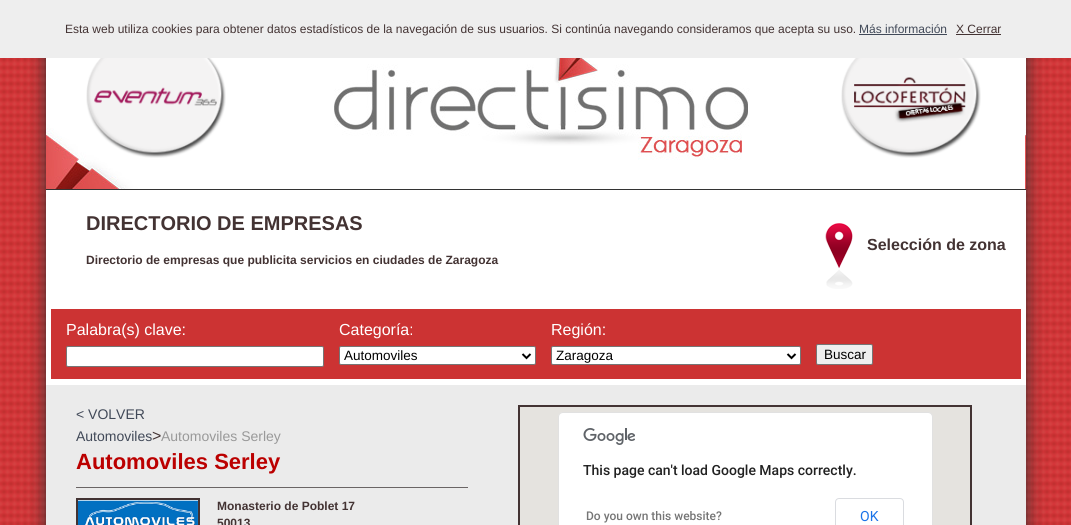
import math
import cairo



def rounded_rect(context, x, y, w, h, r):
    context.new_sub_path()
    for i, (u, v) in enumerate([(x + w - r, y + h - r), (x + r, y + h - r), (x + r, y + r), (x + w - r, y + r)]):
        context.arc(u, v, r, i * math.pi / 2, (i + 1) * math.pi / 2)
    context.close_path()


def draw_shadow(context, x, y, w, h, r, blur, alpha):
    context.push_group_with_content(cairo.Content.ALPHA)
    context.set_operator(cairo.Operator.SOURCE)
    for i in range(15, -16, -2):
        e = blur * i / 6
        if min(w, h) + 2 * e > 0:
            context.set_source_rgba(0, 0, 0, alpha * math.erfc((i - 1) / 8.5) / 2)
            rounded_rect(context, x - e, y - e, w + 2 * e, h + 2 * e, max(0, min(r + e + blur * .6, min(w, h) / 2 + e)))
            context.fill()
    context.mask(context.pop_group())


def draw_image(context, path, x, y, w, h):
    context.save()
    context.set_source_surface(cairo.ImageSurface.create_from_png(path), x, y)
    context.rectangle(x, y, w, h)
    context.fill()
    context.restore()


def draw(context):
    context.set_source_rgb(1, 1, 1)
    context.paint()
    draw_image(context, "images/1.png", 0, 58, 1071, 467)
    context.set_source_rgb(51 / 255, 51 / 255, 51 / 255)
    draw_shadow(context, 46, 0, 980, 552, 0, 9, 1)
    context.set_source_rgb(238 / 255, 238 / 255, 238 / 255)
    context.rectangle(0, 0, 1071, 58)
    context.fill()
    context.set_source_rgb(65 / 255, 73 / 255, 88 / 255)
    context.rectangle(859, 34, 88, 1)
    context.fill()
    context.set_source_rgb(67 / 255, 51 / 255, 51 / 255)
    context.rectangle(956, 34, 45, 1)
    context.fill()
    context.set_source_rgb(1, 1, 1)
    context.rectangle(46, 190, 980, 195)
    context.fill()
    draw_image(context, "images/2.png", 46, 58, 980, 131)
    context.set_source_rgb(51 / 255, 51 / 255, 51 / 255)
    context.rectangle(46, 189, 980, 1)
    context.fill()
    draw_image(context, "images/3.png", 86, 58, 140, 100)
    draw_image(context, "images/4.png", 841, 58, 140, 100)
    draw_image(context, "images/5.png", 825, 223, 28, 66)
    context.set_source_rgb(204 / 255, 51 / 255, 51 / 255)
    context.rectangle(51, 309, 970, 70)
    context.fill()
    context.set_source_rgb(1, 1, 1)
    rounded_rect(context, 66.5, 346.5, 257, 20, 1.5)
    context.fill_preserve()
    context.set_source_rgb(118 / 255, 118 / 255, 118 / 255)
    context.set_line_width(1)
    context.stroke()
    context.set_source_rgb(1, 1, 1)
    rounded_rect(context, 339.5, 346.5, 196, 18, 1.5)
    context.fill_preserve()
    context.set_source_rgb(118 / 255, 118 / 255, 118 / 255)
    context.stroke()
    context.new_path()
    context.move_to(522.5, 354)
    context.line_to(526.5, 358)
    context.line_to(530.5, 354)
    context.set_source_rgb(0, 0, 0)
    context.set_line_width(2)
    context.stroke()
    context.set_source_rgb(1, 1, 1)
    rounded_rect(context, 551.5, 346.5, 249, 18, 1.5)
    context.fill_preserve()
    context.set_source_rgb(118 / 255, 118 / 255, 118 / 255)
    context.set_line_width(1)
    context.stroke()
    context.new_path()
    context.move_to(787.5, 354)
    context.line_to(791.5, 358)
    context.line_to(795.5, 354)
    context.set_source_rgb(0, 0, 0)
    context.set_line_width(2)
    context.stroke()
    context.set_source_rgb(239 / 255, 239 / 255, 239 / 255)
    rounded_rect(context, 816.5, 344.5, 56, 20, 1.5)
    context.fill_preserve()
    context.set_source_rgb(118 / 255, 118 / 255, 118 / 255)
    context.set_line_width(1)
    context.stroke()
    context.set_source_rgb(235 / 255, 235 / 255, 235 / 255)
    context.rectangle(46, 385, 980, 140)
    context.fill()
    context.set_source_rgb(106 / 255, 101 / 255, 101 / 255)
    context.rectangle(76, 487, 392, 1)
    context.fill()
    context.rectangle(77, 499, 122, 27)
    context.set_source_rgb(67 / 255, 51 / 255, 51 / 255)
    context.set_line_width(2)
    context.stroke()
    draw_image(context, "images/6.png", 78, 500, 120, 25)
    context.rectangle(519, 406, 452, 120)
    context.stroke()
    context.set_source_rgb(229 / 255, 227 / 255, 223 / 255)
    context.rectangle(520, 407, 450, 118)
    context.fill()
    context.set_source_rgb(1, 1, 1)
    rounded_rect(context, 558, 412, 375, 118, 5)
    context.fill()
    rounded_rect(context, 558.5, 412.5, 374, 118, 4.5)
    context.set_source_rgba(0, 0, 0, 0.12)
    context.set_line_width(1)
    context.stroke()
    draw_image(context, "images/7.png", 583, 428, 52, 17)
    rounded_rect(context, 835.5, 498.5, 68, 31, 3.5)
    context.set_source_rgb(218 / 255, 220 / 255, 224 / 255)
    context.stroke()
    context.select_font_face("Liberation Sans")
    context.set_font_size(12)
    context.set_source_rgb(67 / 255, 51 / 255, 51 / 255)
    context.move_to(65, 33)
    context.show_text("Esta web utiliza cookies para obtener datos estadísticos de la navegación de sus usuarios. Si continúa navegando consideramos que acepta su uso.")
    context.set_source_rgb(65 / 255, 73 / 255, 88 / 255)
    context.move_to(859, 33)
    context.show_text("Más información")
    context.set_source_rgb(67 / 255, 51 / 255, 51 / 255)
    context.move_to(956, 33)
    context.show_text("X Cerrar")
    context.select_font_face("Liberation Sans", cairo.FontSlant.NORMAL, cairo.FontWeight.BOLD)
    context.set_font_size(20)
    context.move_to(86, 230)
    context.show_text("DIRECTORIO DE EMPRESAS")
    context.set_font_size(16)
    context.move_to(867, 250)
    context.show_text("Selección de zona")
    context.set_font_size(12)
    context.move_to(86, 264)
    context.show_text("Directorio de empresas que publicita servicios en ciudades de Zaragoza")
    context.select_font_face("Liberation Sans")
    context.set_font_size(16)
    context.set_source_rgb(1, 1, 1)
    context.move_to(66, 335)
    context.show_text("Palabra(s) clave:")
    context.move_to(339, 335)
    context.show_text("Categoría:")
    context.set_font_size(13.5)
    context.set_source_rgb(0, 0, 0)
    context.move_to(344, 360)
    context.show_text("Automoviles")
    context.set_font_size(16)
    context.set_source_rgb(1, 1, 1)
    context.move_to(551, 335)
    context.show_text("Región:")
    context.set_font_size(13.5)
    context.set_source_rgb(0, 0, 0)
    context.move_to(556, 360)
    context.show_text("Zaragoza")
    context.move_to(824, 359)
    context.show_text("Buscar")
    context.set_font_size(14)
    context.set_source_rgb(65 / 255, 73 / 255, 88 / 255)
    context.move_to(76, 419)
    context.show_text("< VOLVER")
    context.move_to(76, 441)
    context.show_text("Automoviles")
    context.set_font_size(16)
    context.set_source_rgb(67 / 255, 51 / 255, 51 / 255)
    context.move_to(152, 441)
    context.show_text(">")
    context.set_font_size(14)
    context.set_source_rgb(153 / 255, 153 / 255, 153 / 255)
    context.move_to(161, 441)
    context.show_text("Automoviles Serley")
    context.select_font_face("Liberation Sans", cairo.FontSlant.NORMAL, cairo.FontWeight.BOLD)
    context.set_font_size(22)
    context.set_source_rgb(187 / 255, 0, 0)
    context.move_to(76, 469)
    context.show_text("Automoviles Serley")
    context.set_font_size(12)
    context.set_source_rgb(67 / 255, 51 / 255, 51 / 255)
    context.move_to(217, 510)
    context.show_text("Monasterio de Poblet 17")
    context.move_to(217, 527)
    context.show_text("50013")
    context.select_font_face("Roboto Medium")
    context.set_font_size(14)
    context.set_source_rgb(33 / 255, 33 / 255, 33 / 255)
    context.move_to(583, 475)
    context.show_text("This page can't load Google Maps correctly.")
    context.set_font_size(12)
    context.set_source_rgb(117 / 255, 117 / 255, 117 / 255)
    context.move_to(586, 520)
    context.show_text("Do you own this website?")
    context.select_font_face("Roboto")
    context.set_font_size(14)
    context.set_source_rgb(26 / 255, 115 / 255, 232 / 255)
    context.move_to(860, 521)
    context.show_text("OK")


surface = cairo.ImageSurface(cairo.Format.RGB24, 1071, 525)
context = cairo.Context(surface)
options = cairo.FontOptions()
options.set_hint_metrics(cairo.HintMetrics.OFF)
options.set_hint_style(cairo.HintStyle.NONE)
context.set_font_options(options)
context.set_miter_limit(4)
draw(context)
surface.write_to_png("out.png")
